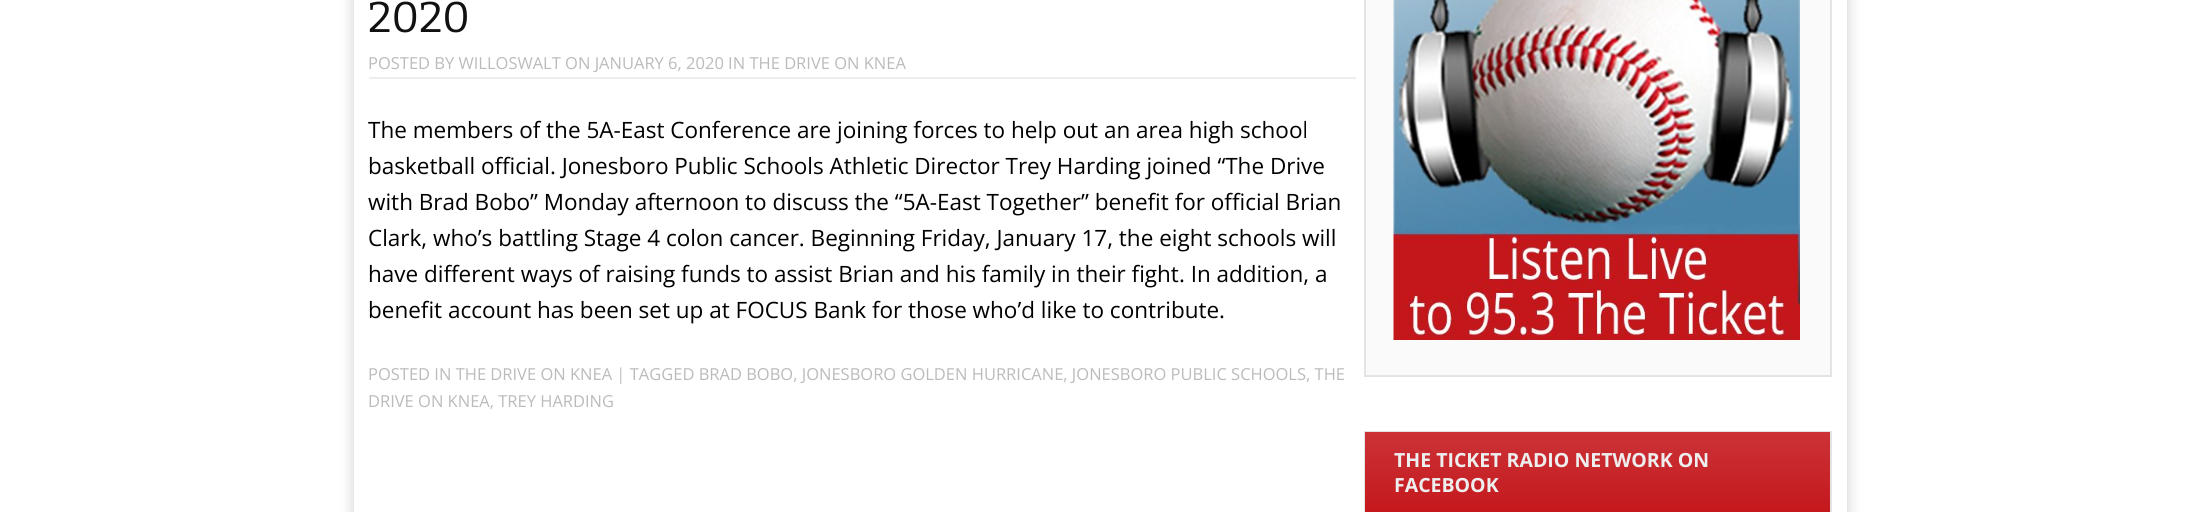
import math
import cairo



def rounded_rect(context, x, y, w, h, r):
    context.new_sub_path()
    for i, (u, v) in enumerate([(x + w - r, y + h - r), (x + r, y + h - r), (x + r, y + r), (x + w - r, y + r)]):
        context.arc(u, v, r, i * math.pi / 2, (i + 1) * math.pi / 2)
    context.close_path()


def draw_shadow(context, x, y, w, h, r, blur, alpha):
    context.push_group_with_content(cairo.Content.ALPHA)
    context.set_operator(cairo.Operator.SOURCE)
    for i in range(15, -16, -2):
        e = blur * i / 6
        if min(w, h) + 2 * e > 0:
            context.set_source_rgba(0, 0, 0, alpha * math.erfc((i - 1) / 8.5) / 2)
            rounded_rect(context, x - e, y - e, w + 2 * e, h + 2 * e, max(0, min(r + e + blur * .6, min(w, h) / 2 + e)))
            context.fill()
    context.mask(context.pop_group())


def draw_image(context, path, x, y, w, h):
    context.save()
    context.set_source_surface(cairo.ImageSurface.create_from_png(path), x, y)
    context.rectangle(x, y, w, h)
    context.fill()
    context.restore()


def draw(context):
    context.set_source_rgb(1, 1, 1)
    context.paint()
    context.save()
    context.set_fill_rule(cairo.FillRule.EVEN_ODD)
    context.new_path()
    context.move_to(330, 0)
    context.line_to(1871, 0)
    context.line_to(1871, 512)
    context.line_to(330, 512)
    context.close_path()
    context.move_to(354, -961)
    context.line_to(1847, -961)
    context.line_to(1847, 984)
    context.curve_to(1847, 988.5, 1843.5, 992, 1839, 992)
    context.line_to(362, 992)
    context.curve_to(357.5, 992, 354, 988.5, 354, 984)
    context.close_path()
    context.clip()
    context.set_source_rgb(0, 0, 0)
    draw_shadow(context, 354, -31, 1493, 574, 8, 7.5, 0.2)
    context.restore()
    context.set_source_rgb(238 / 255, 238 / 255, 238 / 255)
    context.rectangle(369, 77, 987, 2)
    context.fill()
    context.set_source_rgb(250 / 255, 250 / 255, 250 / 255)
    context.rectangle(1365, -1, 466, 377)
    context.fill_preserve()
    context.set_source_rgb(228 / 255, 228 / 255, 228 / 255)
    context.stroke()
    draw_image(context, "images/1.png", 1393, 0, 407, 340)
    context.rectangle(1365, 432, 466, 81)
    context.stroke()
    gradient = cairo.LinearGradient(1598, 432, 1598, 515)
    gradient.add_color_stop_rgba(0, 203 / 255, 51 / 255, 55 / 255, 1)
    gradient.add_color_stop_rgba(1, 196 / 255, 23 / 255, 28 / 255, 1)
    context.set_source(gradient)
    context.rectangle(1365, 432, 465, 80)
    context.fill()
    context.select_font_face("Bitter Thin")
    context.set_font_size(43)
    context.set_source_rgb(17 / 255, 17 / 255, 17 / 255)
    context.move_to(368, 32)
    context.show_text("2020")
    context.select_font_face("Open Sans")
    context.set_font_size(16.5)
    context.set_source_rgb(187 / 255, 187 / 255, 187 / 255)
    context.move_to(368, 69)
    context.show_text("POSTED BY WILLOSWALT ON JANUARY 6, 2020 IN THE DRIVE ON KNEA")
    context.set_font_size(22.5)
    context.set_source_rgb(0, 0, 0)
    context.move_to(368, 138)
    context.show_text("The members of the 5A-East Conference are joining forces to help out an area high school")
    context.move_to(368, 174)
    context.show_text("basketball official. Jonesboro Public Schools Athletic Director Trey Harding joined “The Drive")
    context.move_to(368, 210)
    context.show_text("with Brad Bobo” Monday afternoon to discuss the “5A-East Together” benefit for official Brian")
    context.move_to(368, 246)
    context.show_text("Clark, who’s battling Stage 4 colon cancer. Beginning Friday, January 17, the eight schools will")
    context.move_to(368, 282)
    context.show_text("have different ways of raising funds to assist Brian and his family in their fight. In addition, a")
    context.move_to(368, 318)
    context.show_text("benefit account has been set up at FOCUS Bank for those who’d like to contribute.")
    context.set_font_size(16.5)
    context.set_source_rgb(187 / 255, 187 / 255, 187 / 255)
    context.move_to(368, 380)
    context.show_text("POSTED IN THE DRIVE ON KNEA | TAGGED BRAD BOBO, JONESBORO GOLDEN HURRICANE, JONESBORO PUBLIC SCHOOLS, THE")
    context.move_to(368, 407)
    context.show_text("DRIVE ON KNEA, TREY HARDING")
    context.select_font_face("Open Sans", cairo.FontSlant.NORMAL, cairo.FontWeight.BOLD)
    context.set_font_size(19.5)
    context.set_source_rgb(238 / 255, 238 / 255, 238 / 255)
    context.move_to(1394, 467)
    context.show_text("THE TICKET RADIO NETWORK ON")
    context.move_to(1394, 492)
    context.show_text("FACEBOOK")


surface = cairo.ImageSurface(cairo.Format.RGB24, 2199, 512)
context = cairo.Context(surface)
options = cairo.FontOptions()
options.set_hint_metrics(cairo.HintMetrics.OFF)
options.set_hint_style(cairo.HintStyle.NONE)
context.set_font_options(options)
context.set_miter_limit(4)
draw(context)
surface.write_to_png("out.png")
